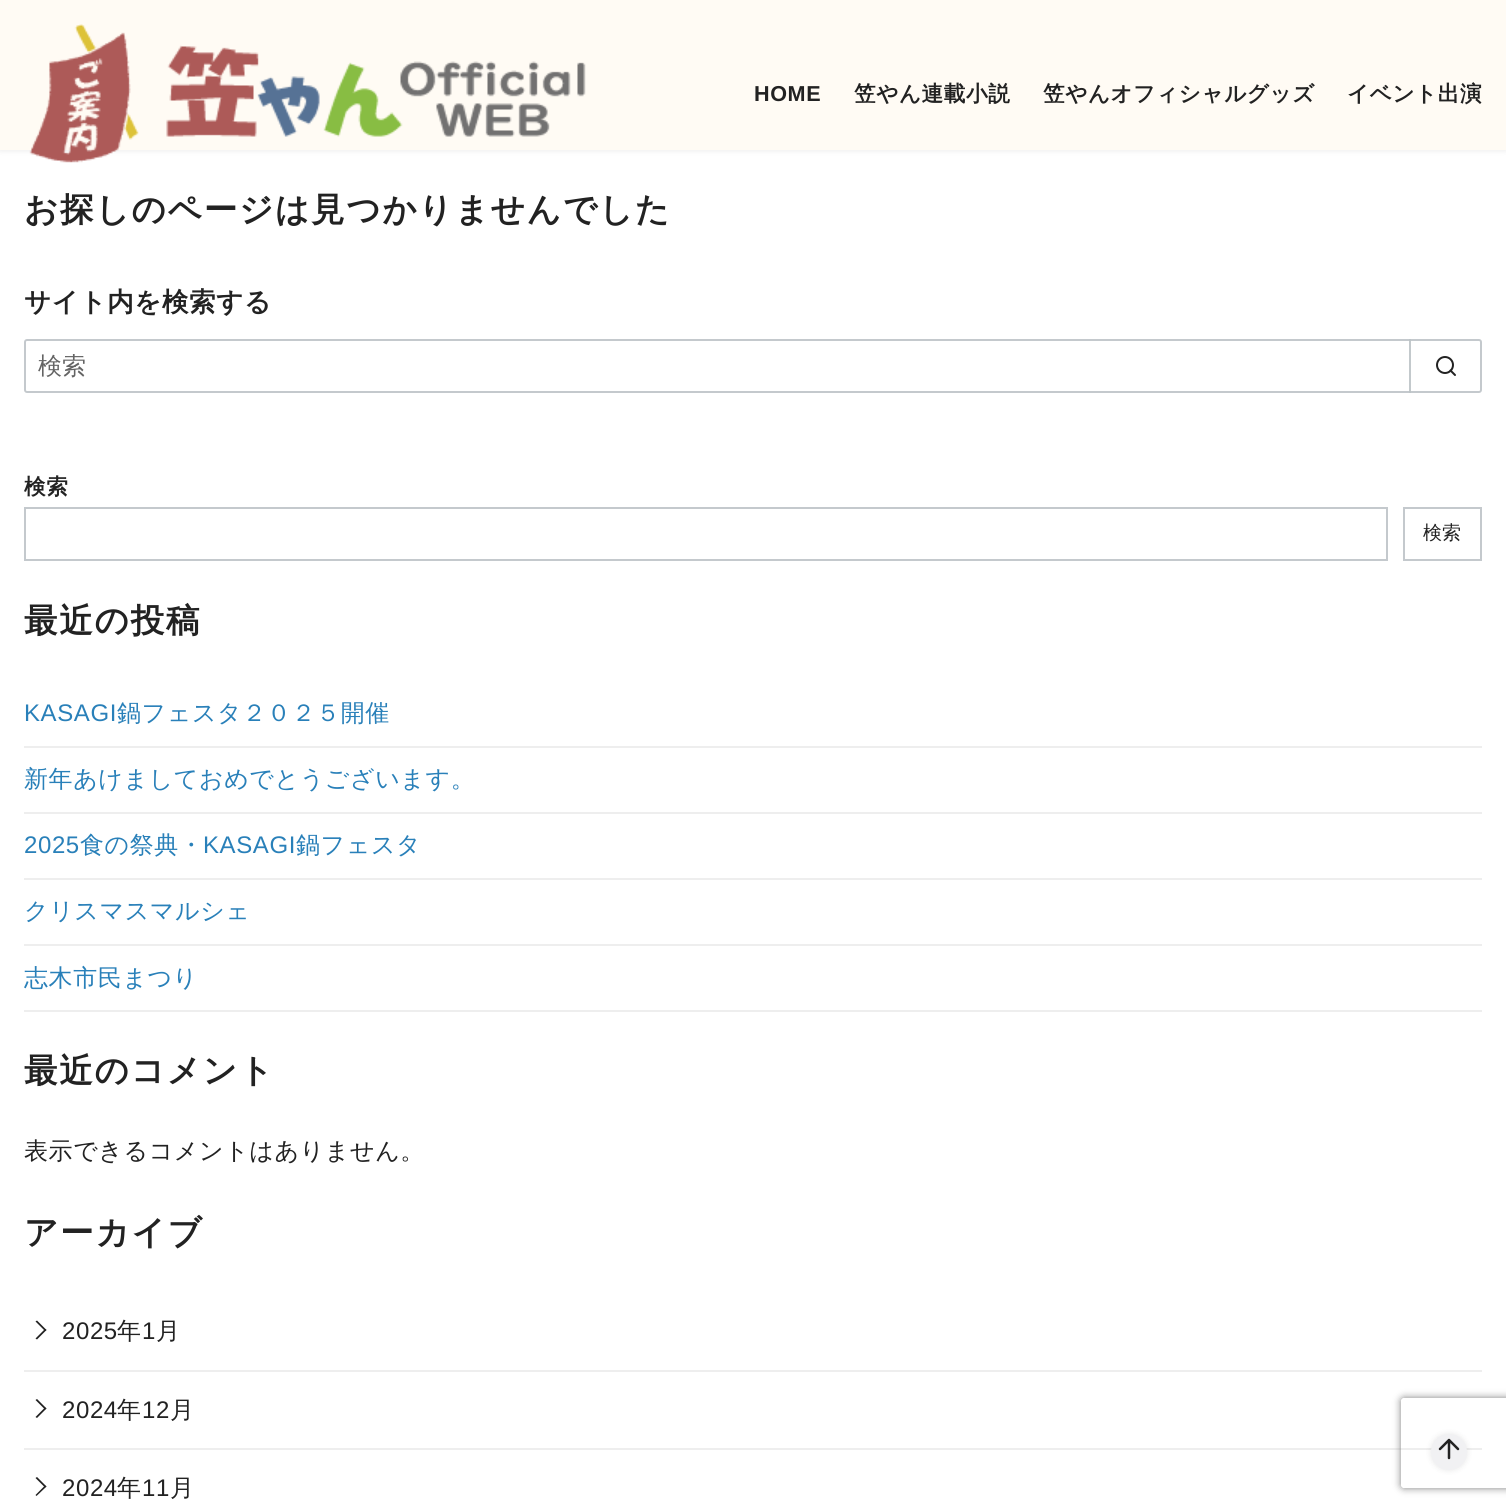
import math
import cairo



def draw_spaced(context, x, y, s, letter, word):
    context.move_to(x, y)
    for ch in s:
        context.show_text(ch)
        context.rel_move_to(letter + word * (ch == ' '), 0)


def rounded_rect(context, x, y, w, h, r):
    context.new_sub_path()
    for i, (u, v) in enumerate([(x + w - r, y + h - r), (x + r, y + h - r), (x + r, y + r), (x + w - r, y + r)]):
        context.arc(u, v, r, i * math.pi / 2, (i + 1) * math.pi / 2)
    context.close_path()


def draw_shadow(context, x, y, w, h, r, blur, alpha):
    context.push_group_with_content(cairo.Content.ALPHA)
    context.set_operator(cairo.Operator.SOURCE)
    for i in range(15, -16, -2):
        e = blur * i / 6
        if min(w, h) + 2 * e > 0:
            context.set_source_rgba(0, 0, 0, alpha * math.erfc((i - 1) / 8.5) / 2)
            rounded_rect(context, x - e, y - e, w + 2 * e, h + 2 * e, max(0, min(r + e + blur * .6, min(w, h) / 2 + e)))
            context.fill()
    context.mask(context.pop_group())


def draw_image(context, path, x, y, w, h):
    context.save()
    context.set_source_surface(cairo.ImageSurface.create_from_png(path), x, y)
    context.rectangle(x, y, w, h)
    context.fill()
    context.restore()


def draw(context):
    context.set_source_rgb(1, 1, 1)
    context.paint()
    context.set_source_rgb(0, 0, 0)
    draw_shadow(context, 0, 0, 1506, 150, 0, 3, 0.1)
    context.set_source_rgb(1, 251 / 255, 244 / 255)
    context.rectangle(0, 0, 1506, 150)
    context.fill()
    draw_image(context, "images/1.png", 29, 24, 557, 139)
    rounded_rect(context, 25, 340, 1456, 52, 2)
    context.set_source_rgb(196 / 255, 201 / 255, 205 / 255)
    context.stroke()
    context.set_source_rgba(189 / 255, 195 / 255, 199 / 255, 0.9)
    context.rectangle(1409, 339, 2, 54)
    context.fill()
    context.arc(1445, 365, 8, 0, 2 * math.pi)
    context.set_source_rgb(34 / 255, 34 / 255, 34 / 255)
    context.stroke()
    context.new_path()
    context.move_to(1455, 375)
    context.line_to(1450.5, 370.5)
    context.set_line_cap(cairo.LineCap.ROUND)
    context.set_line_join(cairo.LineJoin.ROUND)
    context.stroke()
    context.rectangle(25, 508, 1362, 52)
    context.set_source_rgb(196 / 255, 201 / 255, 205 / 255)
    context.set_line_cap(cairo.LineCap.BUTT)
    context.set_line_join(cairo.LineJoin.MITER)
    context.stroke()
    context.rectangle(1404, 508, 77, 52)
    context.stroke()
    context.set_source_rgb(238 / 255, 238 / 255, 238 / 255)
    context.rectangle(24, 746, 1458, 2)
    context.fill()
    context.rectangle(24, 812, 1458, 2)
    context.fill()
    context.rectangle(24, 878, 1458, 2)
    context.fill()
    context.rectangle(24, 944, 1458, 2)
    context.fill()
    context.rectangle(24, 1010, 1458, 2)
    context.fill()
    context.rectangle(24, 1370, 1458, 2)
    context.fill()
    context.set_source_rgb(34 / 255, 34 / 255, 34 / 255)
    context.new_path()
    context.move_to(35.5, 1321.5)
    context.line_to(37, 1320.5)
    context.line_to(46.5, 1330)
    context.line_to(45, 1331)
    context.close_path()
    context.fill()
    context.new_path()
    context.move_to(35.5, 1338.5)
    context.line_to(45, 1329)
    context.line_to(46.5, 1330)
    context.line_to(37, 1339.5)
    context.close_path()
    context.fill()
    context.set_source_rgb(238 / 255, 238 / 255, 238 / 255)
    context.rectangle(24, 1448, 1458, 2)
    context.fill()
    context.set_source_rgb(34 / 255, 34 / 255, 34 / 255)
    context.new_path()
    context.move_to(35.5, 1400)
    context.line_to(37, 1399)
    context.line_to(46.5, 1408.5)
    context.line_to(45, 1409.5)
    context.close_path()
    context.fill()
    context.new_path()
    context.move_to(35.5, 1417)
    context.line_to(45, 1407.5)
    context.line_to(46.5, 1408.5)
    context.line_to(37, 1418)
    context.close_path()
    context.fill()
    context.new_path()
    context.move_to(35.5, 1478)
    context.line_to(37, 1477)
    context.line_to(46.5, 1486.5)
    context.line_to(45, 1487.5)
    context.close_path()
    context.fill()
    context.new_path()
    context.move_to(35.5, 1495)
    context.line_to(45, 1485.5)
    context.line_to(46.5, 1486.5)
    context.line_to(36.5, 1496)
    context.close_path()
    context.fill()
    context.save()
    context.set_fill_rule(cairo.FillRule.EVEN_ODD)
    context.new_path()
    context.move_to(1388, 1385)
    context.line_to(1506, 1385)
    context.line_to(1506, 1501)
    context.line_to(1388, 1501)
    context.close_path()
    context.move_to(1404, 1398)
    context.line_to(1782, 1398)
    context.curve_to(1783.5, 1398, 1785, 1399.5, 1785, 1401)
    context.line_to(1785, 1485)
    context.curve_to(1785, 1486.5, 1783.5, 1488, 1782, 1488)
    context.line_to(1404, 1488)
    context.curve_to(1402.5, 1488, 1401, 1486.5, 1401, 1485)
    context.line_to(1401, 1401)
    context.curve_to(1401, 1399.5, 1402.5, 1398, 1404, 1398)
    context.close_path()
    context.clip()
    context.set_source_rgb(128 / 255, 128 / 255, 128 / 255)
    draw_shadow(context, 1401, 1398, 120, 90, 3, 4, 1)
    context.restore()
    context.set_source_rgb(0, 0, 0)
    draw_shadow(context, 1431, 1434, 36, 36, 18, 3, 0.1)
    context.set_source_rgb(241 / 255, 241 / 255, 243 / 255)
    context.arc(1449, 1452, 18, 0, 2 * math.pi)
    context.fill()
    context.new_path()
    context.move_to(1449, 1458)
    context.line_to(1449, 1440)
    context.move_to(1440, 1449)
    context.line_to(1449, 1440)
    context.line_to(1458, 1449)
    context.set_source_rgb(34 / 255, 34 / 255, 34 / 255)
    context.set_line_width(2.5)
    context.set_line_cap(cairo.LineCap.ROUND)
    context.set_line_join(cairo.LineJoin.ROUND)
    context.stroke()
    context.select_font_face("Liberation Sans", cairo.FontSlant.NORMAL, cairo.FontWeight.BOLD)
    context.set_font_size(21.6)
    draw_spaced(context, 754, 101, "HOME", 0.6, 0)
    context.select_font_face("WenQuanYi Zen Hei", cairo.FontSlant.NORMAL, cairo.FontWeight.BOLD)
    draw_spaced(context, 854, 101, "笠やん連載小説", 0.6, 0)
    draw_spaced(context, 1043, 101, "笠やんオフィシャルグッズ", 0.6, 0)
    draw_spaced(context, 1347, 101, "イベント出演", 0.6, 0)
    context.set_font_size(33.6)
    draw_spaced(context, 24, 221, "お探しのページは見つかりませんでした", 1.7, 0)
    context.set_font_size(26.5)
    draw_spaced(context, 24, 311, "サイト内を検索する", 0.6, 0)
    context.select_font_face("WenQuanYi Zen Hei Medium")
    context.set_font_size(24)
    context.set_source_rgb(100 / 255, 100 / 255, 100 / 255)
    context.move_to(38, 374)
    context.show_text("検索")
    context.select_font_face("WenQuanYi Zen Hei", cairo.FontSlant.NORMAL, cairo.FontWeight.BOLD)
    context.set_font_size(21.6)
    context.set_source_rgb(34 / 255, 34 / 255, 34 / 255)
    draw_spaced(context, 24, 494, "検索", 0.6, 0)
    context.select_font_face("WenQuanYi Zen Hei Medium")
    context.set_font_size(19)
    context.move_to(1423, 539)
    context.show_text("検索")
    context.select_font_face("WenQuanYi Zen Hei", cairo.FontSlant.NORMAL, cairo.FontWeight.BOLD)
    context.set_font_size(33.6)
    draw_spaced(context, 24, 632, "最近の投稿", 1.7, 0)
    context.select_font_face("Liberation Sans")
    context.set_font_size(24)
    context.set_source_rgb(41 / 255, 128 / 255, 185 / 255)
    draw_spaced(context, 24, 721, "KASAGI", 0.6, 0)
    context.select_font_face("WenQuanYi Zen Hei Medium")
    draw_spaced(context, 117, 721, "鍋フェスタ２０２５開催", 0.6, 0)
    draw_spaced(context, 24, 787, "新年あけましておめでとうございます。", 0.6, 0)
    context.select_font_face("Liberation Sans")
    draw_spaced(context, 24, 853, "2025", 0.6, 0)
    context.select_font_face("WenQuanYi Zen Hei Medium")
    draw_spaced(context, 80, 853, "食の祭典・", 0.6, 0)
    context.select_font_face("Liberation Sans")
    draw_spaced(context, 203, 853, "KASAGI", 0.6, 0)
    context.select_font_face("WenQuanYi Zen Hei Medium")
    draw_spaced(context, 296, 853, "鍋フェスタ", 0.6, 0)
    draw_spaced(context, 24, 919, "クリスマスマルシェ", 0.6, 0)
    draw_spaced(context, 24, 986, "志木市民まつり", 0.6, 0)
    context.select_font_face("WenQuanYi Zen Hei", cairo.FontSlant.NORMAL, cairo.FontWeight.BOLD)
    context.set_font_size(33.6)
    context.set_source_rgb(34 / 255, 34 / 255, 34 / 255)
    draw_spaced(context, 24, 1082, "最近のコメント", 1.7, 0)
    context.select_font_face("WenQuanYi Zen Hei Medium")
    context.set_font_size(24)
    draw_spaced(context, 24, 1159, "表示できるコメントはありません。", 0.6, 0)
    context.select_font_face("WenQuanYi Zen Hei", cairo.FontSlant.NORMAL, cairo.FontWeight.BOLD)
    context.set_font_size(33.6)
    draw_spaced(context, 24, 1244, "アーカイブ", 1.7, 0)
    context.select_font_face("Liberation Sans")
    context.set_font_size(24)
    draw_spaced(context, 62, 1339, "2025", 0.6, 0)
    context.select_font_face("WenQuanYi Zen Hei Medium")
    draw_spaced(context, 117, 1339, "年", 0.6, 0)
    context.select_font_face("Liberation Sans")
    draw_spaced(context, 142, 1339, "1", 0.6, 0)
    context.select_font_face("WenQuanYi Zen Hei Medium")
    draw_spaced(context, 156, 1339, "月", 0.6, 0)
    context.select_font_face("Liberation Sans")
    draw_spaced(context, 62, 1418, "2024", 0.6, 0)
    context.select_font_face("WenQuanYi Zen Hei Medium")
    draw_spaced(context, 117, 1418, "年", 0.6, 0)
    context.select_font_face("Liberation Sans")
    draw_spaced(context, 142, 1418, "12", 0.6, 0)
    context.select_font_face("WenQuanYi Zen Hei Medium")
    draw_spaced(context, 170, 1418, "月", 0.6, 0)
    context.select_font_face("Liberation Sans")
    draw_spaced(context, 62, 1496, "2024", 0.6, 0)
    context.select_font_face("WenQuanYi Zen Hei Medium")
    draw_spaced(context, 117, 1496, "年", 0.6, 0)
    context.select_font_face("Liberation Sans")
    draw_spaced(context, 142, 1496, "11", 0.6, 0)
    context.select_font_face("WenQuanYi Zen Hei Medium")
    draw_spaced(context, 170, 1496, "月", 0.6, 0)


surface = cairo.ImageSurface(cairo.Format.RGB24, 1506, 1508)
context = cairo.Context(surface)
options = cairo.FontOptions()
options.set_hint_metrics(cairo.HintMetrics.OFF)
options.set_hint_style(cairo.HintStyle.NONE)
context.set_font_options(options)
context.set_miter_limit(4)
draw(context)
surface.write_to_png("out.png")
